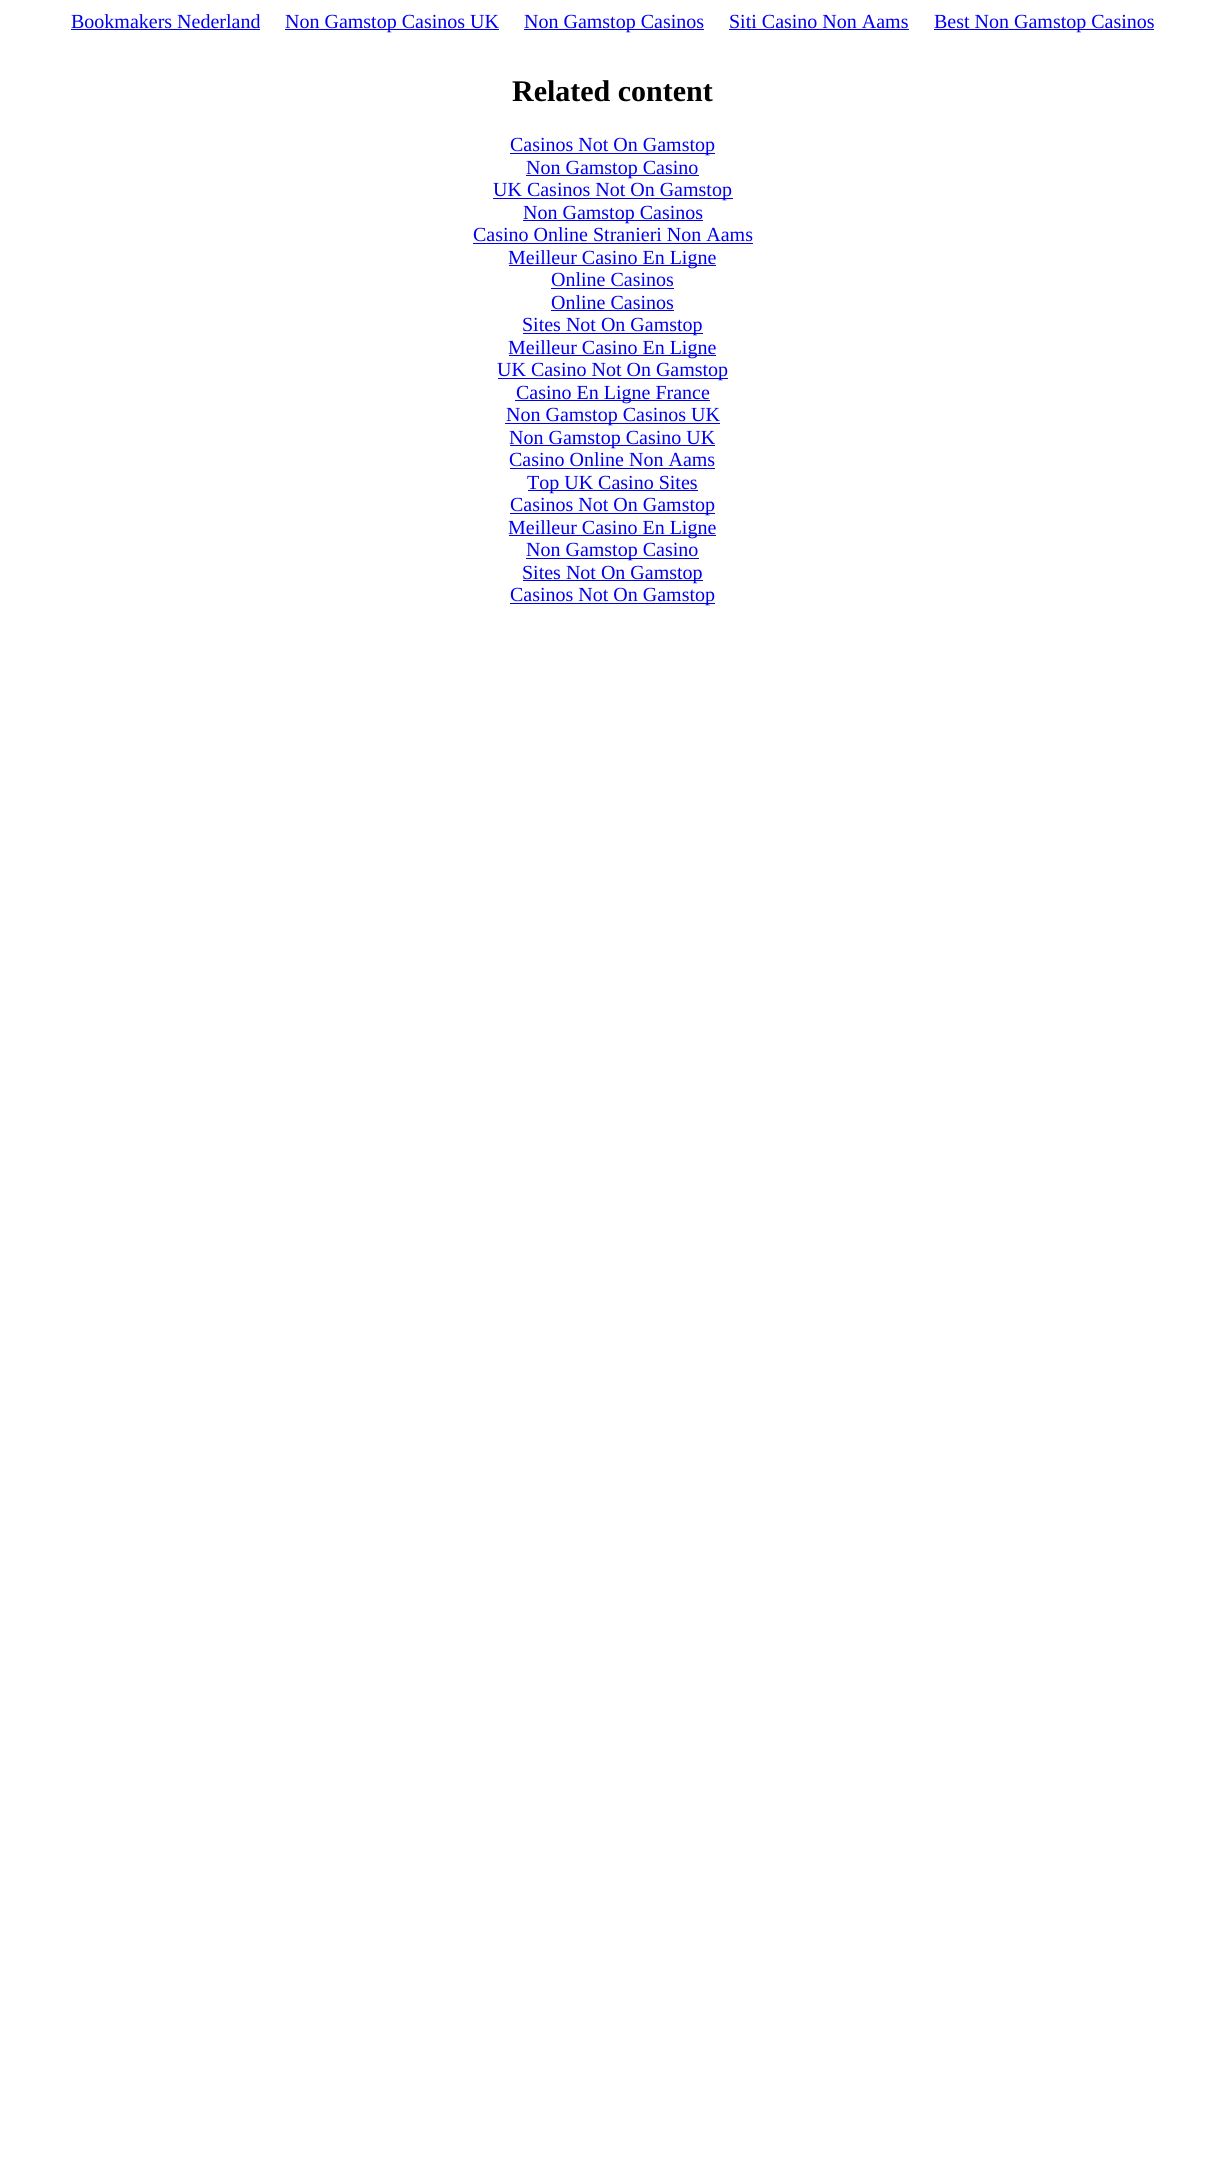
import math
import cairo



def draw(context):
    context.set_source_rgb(1, 1, 1)
    context.paint()
    context.set_source_rgb(0, 0, 238 / 255)
    context.rectangle(71, 29, 189, 1)
    context.fill()
    context.rectangle(285, 29, 214, 1)
    context.fill()
    context.rectangle(524, 29, 180, 1)
    context.fill()
    context.rectangle(729, 29, 180, 1)
    context.fill()
    context.rectangle(934, 29, 220, 1)
    context.fill()
    context.rectangle(510, 153, 205, 1)
    context.fill()
    context.rectangle(526, 175, 173, 1)
    context.fill()
    context.rectangle(493, 198, 240, 1)
    context.fill()
    context.rectangle(523, 220, 180, 1)
    context.fill()
    context.rectangle(473, 243, 280, 1)
    context.fill()
    context.rectangle(509, 265, 207, 1)
    context.fill()
    context.rectangle(551, 288, 123, 1)
    context.fill()
    context.rectangle(551, 310, 123, 1)
    context.fill()
    context.rectangle(523, 333, 180, 1)
    context.fill()
    context.rectangle(509, 355, 207, 1)
    context.fill()
    context.rectangle(498, 378, 230, 1)
    context.fill()
    context.rectangle(515, 400, 195, 1)
    context.fill()
    context.rectangle(505, 423, 215, 1)
    context.fill()
    context.rectangle(510, 445, 205, 1)
    context.fill()
    context.rectangle(510, 468, 205, 1)
    context.fill()
    context.rectangle(528, 490, 170, 1)
    context.fill()
    context.rectangle(510, 513, 205, 1)
    context.fill()
    context.rectangle(509, 535, 207, 1)
    context.fill()
    context.rectangle(526, 558, 173, 1)
    context.fill()
    context.rectangle(523, 580, 180, 1)
    context.fill()
    context.rectangle(510, 603, 205, 1)
    context.fill()
    context.select_font_face("Liberation Serif")
    context.set_font_size(20)
    context.move_to(71, 28)
    context.show_text("Bookmakers Nederland")
    context.move_to(285, 28)
    context.show_text("Non Gamstop Casinos UK")
    context.move_to(524, 28)
    context.show_text("Non Gamstop Casinos")
    context.move_to(729, 28)
    context.show_text("Siti Casino Non Aams")
    context.move_to(934, 28)
    context.show_text("Best Non Gamstop Casinos")
    context.select_font_face("Liberation Serif", cairo.FontSlant.NORMAL, cairo.FontWeight.BOLD)
    context.set_font_size(30)
    context.set_source_rgb(0, 0, 0)
    context.move_to(512, 101)
    context.show_text("Related content")
    context.select_font_face("Liberation Serif")
    context.set_font_size(20)
    context.set_source_rgb(0, 0, 238 / 255)
    context.move_to(510, 151)
    context.show_text("Casinos Not On Gamstop")
    context.move_to(526, 174)
    context.show_text("Non Gamstop Casino")
    context.move_to(493, 196)
    context.show_text("UK Casinos Not On Gamstop")
    context.move_to(523, 219)
    context.show_text("Non Gamstop Casinos")
    context.move_to(473, 241)
    context.show_text("Casino Online Stranieri Non Aams")
    context.move_to(508, 264)
    context.show_text("Meilleur Casino En Ligne")
    context.move_to(551, 286)
    context.show_text("Online Casinos")
    context.move_to(551, 309)
    context.show_text("Online Casinos")
    context.move_to(522, 331)
    context.show_text("Sites Not On Gamstop")
    context.move_to(508, 354)
    context.show_text("Meilleur Casino En Ligne")
    context.move_to(497, 376)
    context.show_text("UK Casino Not On Gamstop")
    context.move_to(516, 399)
    context.show_text("Casino En Ligne France")
    context.move_to(506, 421)
    context.show_text("Non Gamstop Casinos UK")
    context.move_to(509, 444)
    context.show_text("Non Gamstop Casino UK")
    context.move_to(509, 466)
    context.show_text("Casino Online Non Aams")
    context.move_to(527, 489)
    context.show_text("Top UK Casino Sites")
    context.move_to(510, 511)
    context.show_text("Casinos Not On Gamstop")
    context.move_to(508, 534)
    context.show_text("Meilleur Casino En Ligne")
    context.move_to(526, 556)
    context.show_text("Non Gamstop Casino")
    context.move_to(522, 579)
    context.show_text("Sites Not On Gamstop")
    context.move_to(510, 601)
    context.show_text("Casinos Not On Gamstop")


surface = cairo.ImageSurface(cairo.Format.RGB24, 1224, 2182)
context = cairo.Context(surface)
options = cairo.FontOptions()
options.set_hint_metrics(cairo.HintMetrics.OFF)
options.set_hint_style(cairo.HintStyle.NONE)
context.set_font_options(options)
context.set_miter_limit(4)
draw(context)
surface.write_to_png("out.png")
